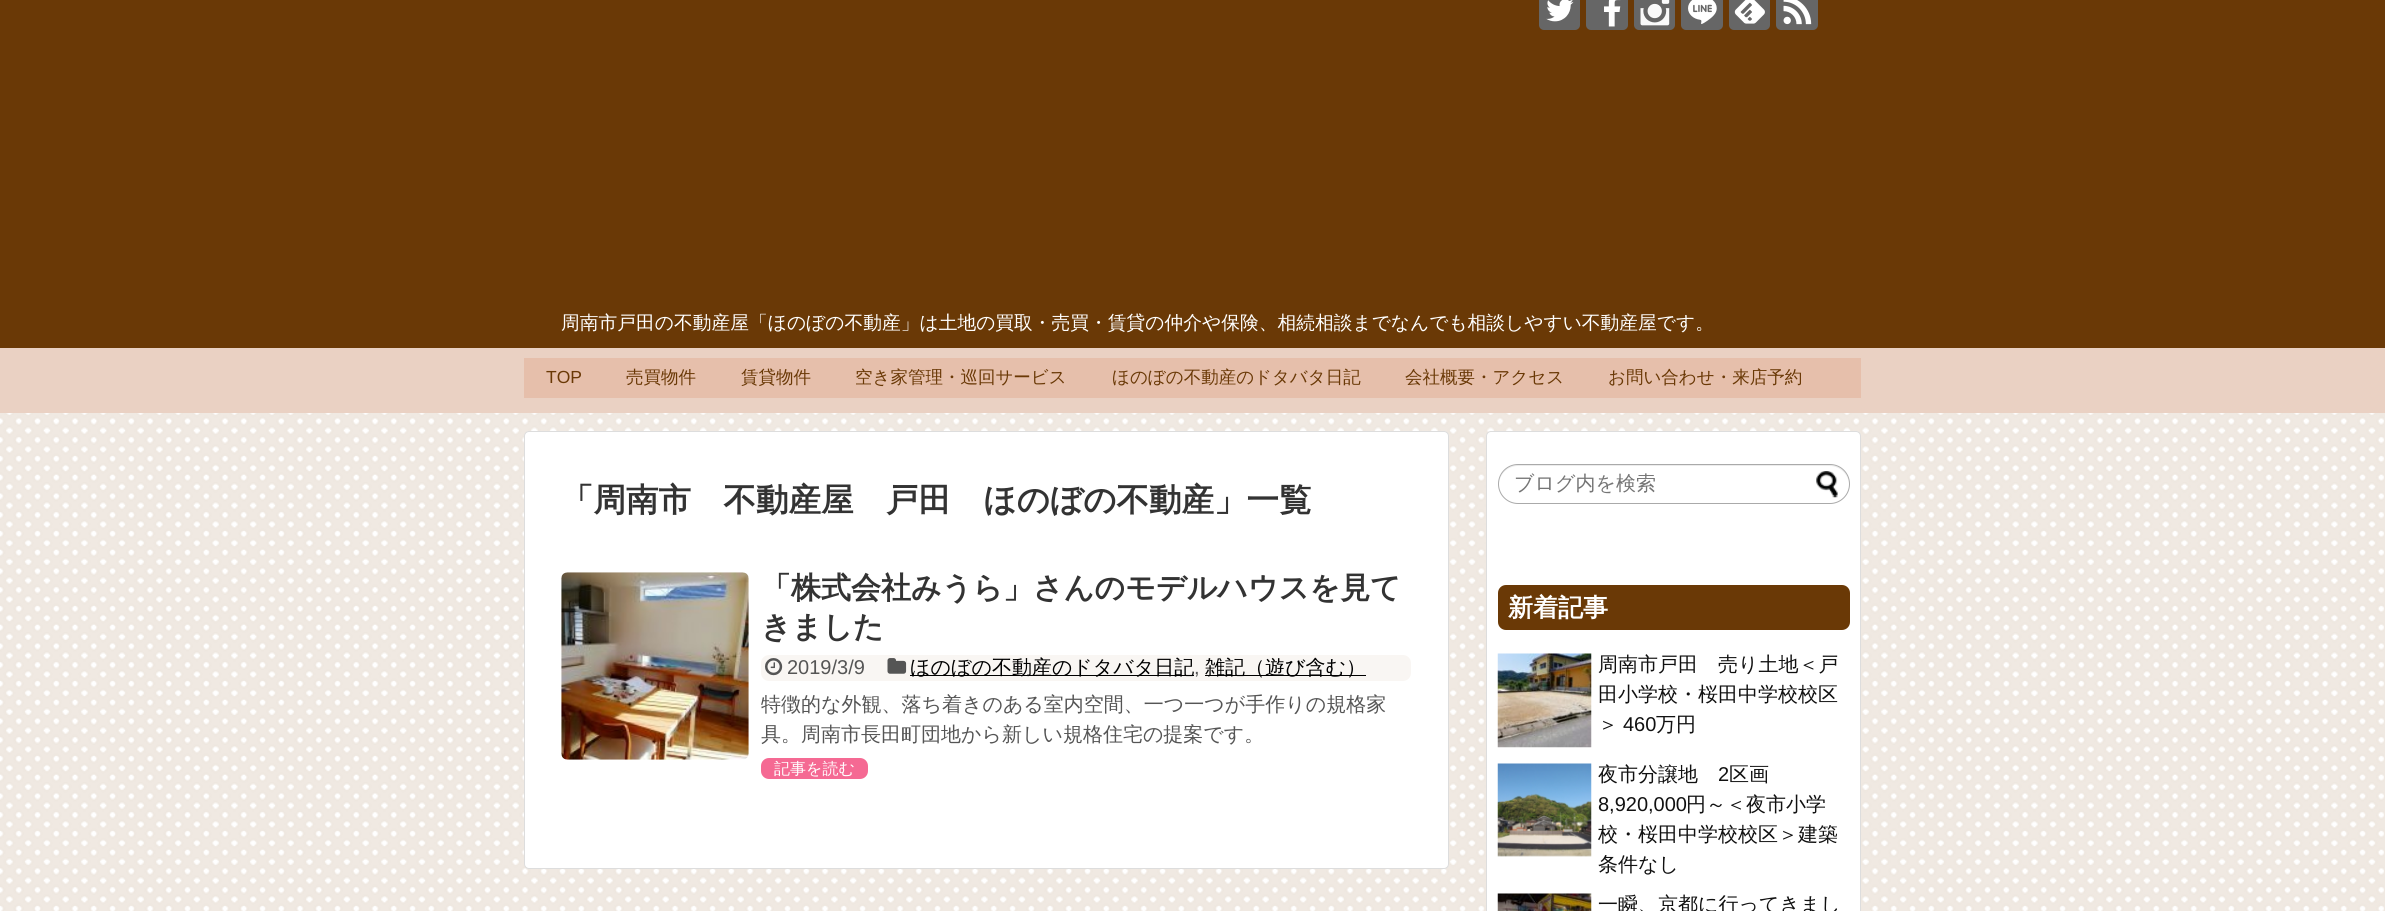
import math
import cairo



def rounded_rect(context, x, y, w, h, r):
    context.new_sub_path()
    for i, (u, v) in enumerate([(x + w - r, y + h - r), (x + r, y + h - r), (x + r, y + r), (x + w - r, y + r)]):
        context.arc(u, v, r, i * math.pi / 2, (i + 1) * math.pi / 2)
    context.close_path()


def draw_image(context, path, x, y, w, h):
    context.save()
    context.set_source_surface(cairo.ImageSurface.create_from_png(path), x, y)
    context.rectangle(x, y, w, h)
    context.fill()
    context.restore()


def draw(context):
    context.set_source_rgb(240 / 255, 233 / 255, 226 / 255)
    context.paint()
    draw_image(context, "images/1.png", 0, 413, 2384, 498)
    context.set_source_rgb(106 / 255, 57 / 255, 6 / 255)
    context.rectangle(0, 0, 2385, 348)
    context.fill()
    context.set_source_rgb(102 / 255, 102 / 255, 102 / 255)
    rounded_rect(context, 1539, -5, 41, 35, 5)
    context.fill()
    draw_image(context, "images/2.png", 1546, 0, 28, 22)
    rounded_rect(context, 1586, -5, 42, 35, 5)
    context.fill()
    draw_image(context, "images/3.png", 1604, 0, 17, 27)
    rounded_rect(context, 1634, -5, 41, 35, 5)
    context.fill()
    draw_image(context, "images/4.png", 1640, 0, 30, 26)
    rounded_rect(context, 1681, -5, 42, 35, 5)
    context.fill()
    draw_image(context, "images/5.png", 1688, 0, 29, 24)
    rounded_rect(context, 1729, -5, 41, 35, 5)
    context.fill()
    draw_image(context, "images/6.png", 1734, 0, 31, 24)
    rounded_rect(context, 1776, -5, 42, 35, 5)
    context.fill()
    draw_image(context, "images/7.png", 1783, 0, 29, 25)
    context.set_source_rgb(234 / 255, 209 / 255, 195 / 255)
    context.rectangle(0, 348, 2385, 65)
    context.fill()
    context.set_source_rgb(230 / 255, 191 / 255, 171 / 255)
    context.rectangle(524, 358, 1337, 40)
    context.fill()
    context.set_source_rgb(1, 1, 1)
    rounded_rect(context, 524.5, 431.5, 924, 437, 4.5)
    context.fill_preserve()
    context.set_source_rgb(221 / 255, 221 / 255, 221 / 255)
    context.set_line_width(1)
    context.stroke()
    draw_image(context, "images/8.png", 561, 572, 188, 188)
    context.set_source_rgb(249 / 255, 246 / 255, 243 / 255)
    rounded_rect(context, 761, 655, 650, 26, 8)
    context.fill()
    draw_image(context, "images/9.png", 765, 658, 18, 18)
    draw_image(context, "images/10.png", 887, 658, 20, 16)
    context.set_source_rgb(0, 0, 0)
    context.rectangle(910, 675, 284, 1)
    context.fill()
    context.rectangle(1205, 675, 161, 1)
    context.fill()
    context.set_source_rgb(245 / 255, 105 / 255, 147 / 255)
    rounded_rect(context, 761, 758, 107, 21, 8)
    context.fill()
    context.set_source_rgb(1, 1, 1)
    rounded_rect(context, 1486.5, 431.5, 374, 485, 4.5)
    context.fill_preserve()
    context.set_source_rgb(221 / 255, 221 / 255, 221 / 255)
    context.stroke()
    context.set_source_rgb(236 / 255, 236 / 255, 236 / 255)
    context.new_path()
    context.move_to(1518, 466)
    context.line_to(1830, 466)
    context.curve_to(1840, 466, 1849, 475, 1849, 485)
    context.curve_to(1849, 474, 1841, 465, 1830, 465)
    context.line_to(1518, 465)
    context.curve_to(1507, 465, 1499, 474, 1499, 485)
    context.curve_to(1499, 475, 1507, 466, 1518, 466)
    context.close_path()
    context.fill()
    rounded_rect(context, 1498.5, 464.5, 351, 39, 19.5)
    context.set_source_rgb(170 / 255, 170 / 255, 170 / 255)
    context.stroke()
    draw_image(context, "images/11.png", 1816, 471, 22, 27)
    context.set_source_rgb(106 / 255, 57 / 255, 6 / 255)
    rounded_rect(context, 1498, 585, 352, 45, 8)
    context.fill()
    draw_image(context, "images/12.png", 1497, 653, 95, 95)
    draw_image(context, "images/13.png", 1497, 763, 95, 94)
    draw_image(context, "images/14.png", 1497, 893, 95, 18)
    context.select_font_face("WenQuanYi Zen Hei Medium")
    context.set_font_size(18.75)
    context.set_source_rgb(1, 1, 1)
    context.move_to(561, 329)
    context.show_text("周南市戸田の不動産屋「ほのぼの不動産」は土地の買取・売買・賃貸の仲介や保険、相続相談までなんでも相談しやすい不動産屋です。")
    context.select_font_face("Liberation Sans")
    context.set_font_size(17.5)
    context.set_source_rgb(106 / 255, 57 / 255, 6 / 255)
    context.move_to(546, 383)
    context.show_text("TOP")
    context.select_font_face("WenQuanYi Zen Hei Medium")
    context.move_to(626, 383)
    context.show_text("売買物件")
    context.move_to(741, 383)
    context.show_text("賃貸物件")
    context.move_to(855, 383)
    context.show_text("空き家管理・巡回サービス")
    context.move_to(1112, 383)
    context.show_text("ほのぼの不動産のドタバタ日記")
    context.move_to(1405, 383)
    context.show_text("会社概要・アクセス")
    context.move_to(1608, 383)
    context.show_text("お問い合わせ・来店予約")
    context.select_font_face("WenQuanYi Zen Hei", cairo.FontSlant.NORMAL, cairo.FontWeight.BOLD)
    context.set_font_size(32.5)
    context.set_source_rgb(51 / 255, 51 / 255, 51 / 255)
    context.move_to(561, 511)
    context.show_text("「周南市　不動産屋　戸田　ほのぼの不動産」一覧")
    context.set_font_size(30)
    context.move_to(761, 598)
    context.show_text("「株式会社みうら」さんのモデルハウスを見て")
    context.move_to(761, 637)
    context.show_text("きました")
    context.select_font_face("Liberation Sans")
    context.set_font_size(20)
    context.set_source_rgb(85 / 255, 85 / 255, 85 / 255)
    context.move_to(787, 674)
    context.show_text("2019/3/9")
    context.select_font_face("WenQuanYi Zen Hei Medium")
    context.set_source_rgb(0, 0, 0)
    context.move_to(910, 674)
    context.show_text("ほのぼの不動産のドタバタ日記")
    context.select_font_face("Liberation Sans")
    context.set_source_rgb(85 / 255, 85 / 255, 85 / 255)
    context.move_to(1194, 674)
    context.show_text(",")
    context.select_font_face("WenQuanYi Zen Hei Medium")
    context.set_source_rgb(0, 0, 0)
    context.move_to(1205, 674)
    context.show_text("雑記（遊び含む）")
    context.set_source_rgb(85 / 255, 85 / 255, 85 / 255)
    context.move_to(761, 711)
    context.show_text("特徴的な外観、落ち着きのある室内空間、一つ一つが手作りの規格家")
    context.move_to(761, 741)
    context.show_text("具。周南市長田町団地から新しい規格住宅の提案です。")
    context.set_font_size(16)
    context.set_source_rgb(1, 1, 1)
    context.move_to(774, 774)
    context.show_text("記事を読む")
    context.set_font_size(20)
    context.set_source_rgb(117 / 255, 117 / 255, 117 / 255)
    context.move_to(1514, 490)
    context.show_text("ブログ内を検索")
    context.select_font_face("WenQuanYi Zen Hei", cairo.FontSlant.NORMAL, cairo.FontWeight.BOLD)
    context.set_font_size(25)
    context.set_source_rgb(1, 1, 1)
    context.move_to(1508, 616)
    context.show_text("新着記事")
    context.select_font_face("WenQuanYi Zen Hei Medium")
    context.set_font_size(20)
    context.set_source_rgb(17 / 255, 17 / 255, 17 / 255)
    context.move_to(1598, 671)
    context.show_text("周南市戸田　売り土地＜戸")
    context.move_to(1598, 701)
    context.show_text("田小学校・桜田中学校校区")
    context.move_to(1598, 731)
    context.show_text("＞")
    context.select_font_face("Liberation Sans")
    context.move_to(1623, 731)
    context.show_text("460")
    context.select_font_face("WenQuanYi Zen Hei Medium")
    context.move_to(1656, 731)
    context.show_text("万円")
    context.move_to(1598, 781)
    context.show_text("夜市分譲地")
    context.select_font_face("Liberation Sans")
    context.move_to(1718, 781)
    context.show_text("2")
    context.select_font_face("WenQuanYi Zen Hei Medium")
    context.move_to(1729, 781)
    context.show_text("区画")
    context.select_font_face("Liberation Sans")
    context.move_to(1598, 811)
    context.show_text("8,920,000")
    context.select_font_face("WenQuanYi Zen Hei Medium")
    context.move_to(1686, 811)
    context.show_text("円～＜夜市小学")
    context.move_to(1598, 841)
    context.show_text("校・桜田中学校校区＞建築")
    context.move_to(1598, 871)
    context.show_text("条件なし")
    context.move_to(1598, 911)
    context.show_text("一瞬、京都に行ってきまし")


surface = cairo.ImageSurface(cairo.Format.RGB24, 2385, 911)
context = cairo.Context(surface)
options = cairo.FontOptions()
options.set_hint_metrics(cairo.HintMetrics.OFF)
options.set_hint_style(cairo.HintStyle.NONE)
context.set_font_options(options)
context.set_miter_limit(4)
draw(context)
surface.write_to_png("out.png")
